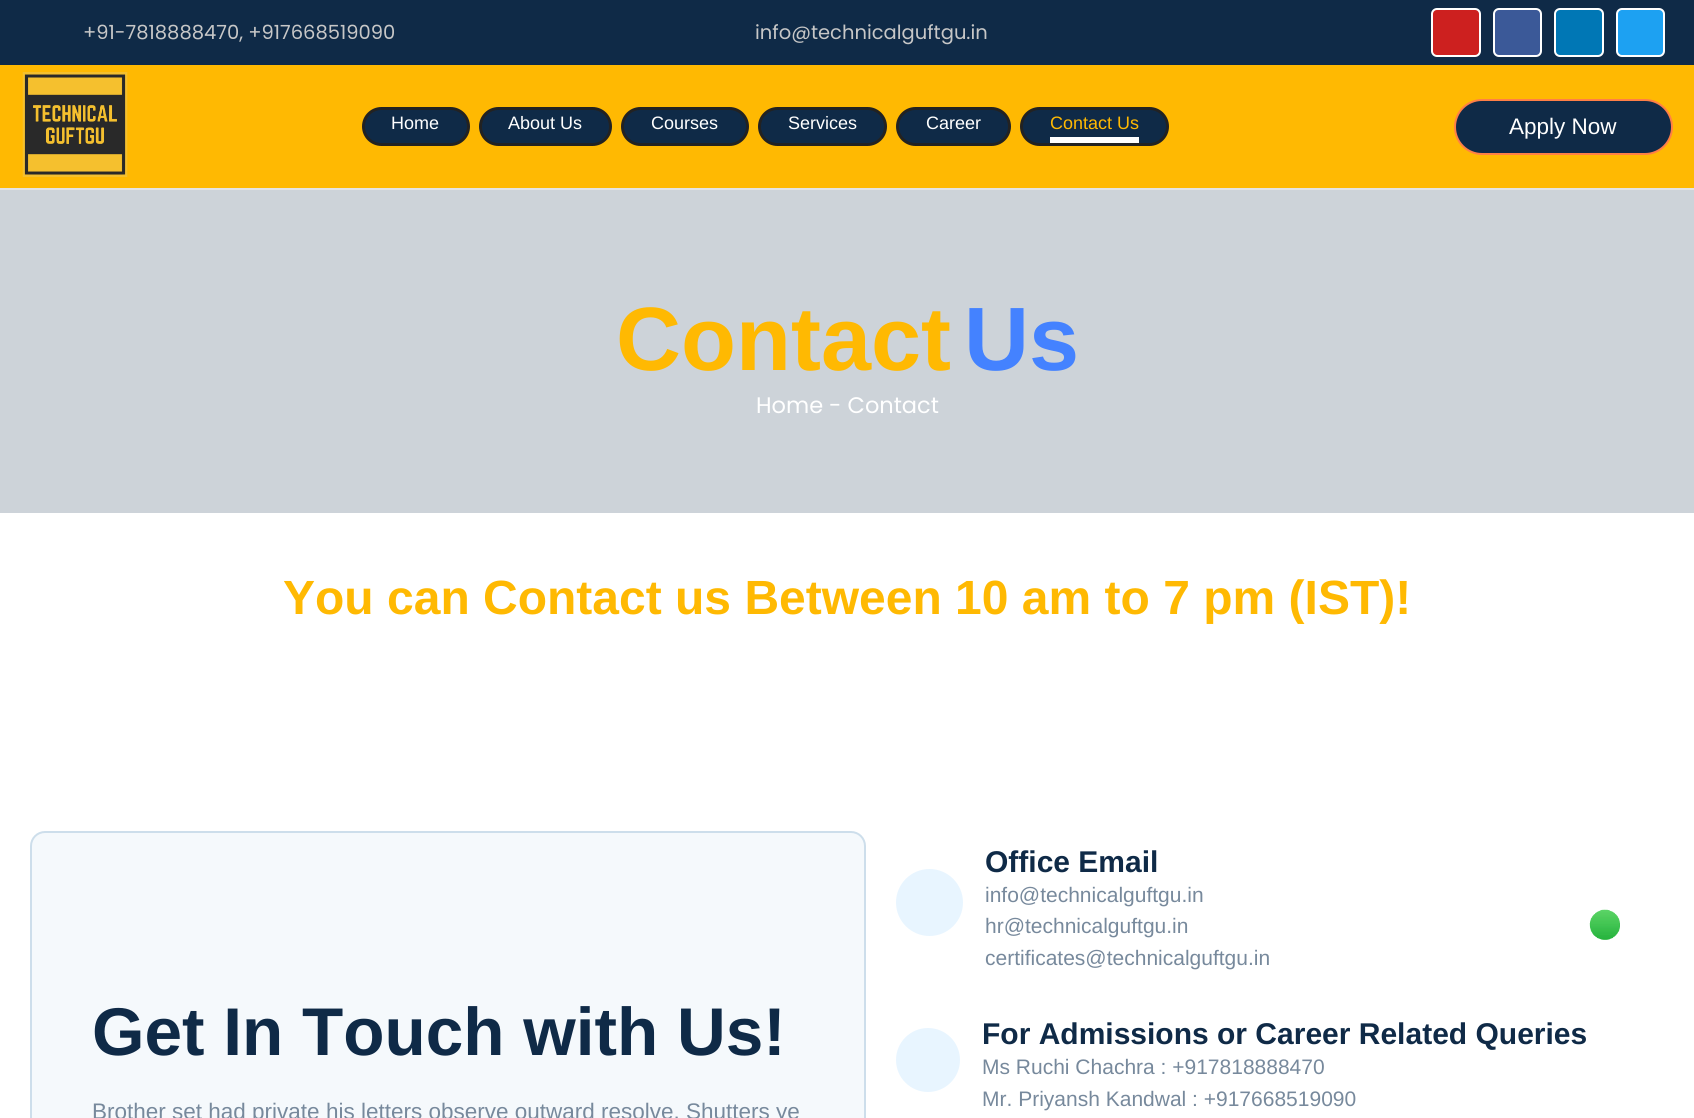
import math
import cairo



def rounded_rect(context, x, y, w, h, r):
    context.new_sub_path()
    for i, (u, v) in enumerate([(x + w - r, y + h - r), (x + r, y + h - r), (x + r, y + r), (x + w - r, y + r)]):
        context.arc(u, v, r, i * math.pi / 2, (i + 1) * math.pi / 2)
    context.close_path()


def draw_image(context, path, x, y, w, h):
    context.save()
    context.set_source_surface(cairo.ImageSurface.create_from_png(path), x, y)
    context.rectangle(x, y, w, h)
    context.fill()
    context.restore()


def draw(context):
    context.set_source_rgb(1, 1, 1)
    context.paint()
    context.set_source_rgb(15 / 255, 42 / 255, 71 / 255)
    context.rectangle(0, 0, 1694, 65)
    context.fill()
    context.set_source_rgb(205 / 255, 32 / 255, 31 / 255)
    rounded_rect(context, 1432, 9, 48, 47, 5)
    context.fill_preserve()
    context.set_source_rgb(1, 1, 1)
    context.stroke()
    context.set_source_rgb(59 / 255, 89 / 255, 152 / 255)
    rounded_rect(context, 1494, 9, 47, 47, 5)
    context.fill_preserve()
    context.set_source_rgb(1, 1, 1)
    context.stroke()
    context.set_source_rgb(0, 119 / 255, 181 / 255)
    rounded_rect(context, 1555, 9, 48, 47, 5)
    context.fill_preserve()
    context.set_source_rgb(1, 1, 1)
    context.stroke()
    context.set_source_rgb(29 / 255, 161 / 255, 242 / 255)
    rounded_rect(context, 1617, 9, 47, 47, 5)
    context.fill_preserve()
    context.set_source_rgb(1, 1, 1)
    context.stroke()
    context.set_source_rgb(1, 185 / 255, 2 / 255)
    context.rectangle(0, 65, 1694, 123)
    context.fill()
    context.set_source_rgb(228 / 255, 228 / 255, 228 / 255)
    context.rectangle(0, 188, 1694, 2)
    context.fill()
    draw_image(context, "images/1.png", 22, 72, 106, 105)
    context.set_source_rgb(15 / 255, 42 / 255, 71 / 255)
    rounded_rect(context, 363.5, 108.5, 105, 36, 18)
    context.fill_preserve()
    context.set_source_rgb(34 / 255, 34 / 255, 34 / 255)
    context.set_line_width(3)
    context.stroke()
    context.set_source_rgb(15 / 255, 42 / 255, 71 / 255)
    rounded_rect(context, 480.5, 108.5, 130, 36, 18)
    context.fill_preserve()
    context.set_source_rgb(34 / 255, 34 / 255, 34 / 255)
    context.stroke()
    context.set_source_rgb(15 / 255, 42 / 255, 71 / 255)
    rounded_rect(context, 622.5, 108.5, 125, 36, 18)
    context.fill_preserve()
    context.set_source_rgb(34 / 255, 34 / 255, 34 / 255)
    context.stroke()
    context.set_source_rgb(15 / 255, 42 / 255, 71 / 255)
    rounded_rect(context, 759.5, 108.5, 126, 36, 18)
    context.fill_preserve()
    context.set_source_rgb(34 / 255, 34 / 255, 34 / 255)
    context.stroke()
    context.set_source_rgb(15 / 255, 42 / 255, 71 / 255)
    rounded_rect(context, 897.5, 108.5, 112, 36, 18)
    context.fill_preserve()
    context.set_source_rgb(34 / 255, 34 / 255, 34 / 255)
    context.stroke()
    context.set_source_rgb(15 / 255, 42 / 255, 71 / 255)
    rounded_rect(context, 1021.5, 108.5, 146, 36, 18)
    context.fill_preserve()
    context.set_source_rgb(34 / 255, 34 / 255, 34 / 255)
    context.stroke()
    context.set_source_rgb(1, 1, 1)
    context.rectangle(1050, 137, 89, 6)
    context.fill()
    context.set_source_rgb(15 / 255, 42 / 255, 71 / 255)
    rounded_rect(context, 1455, 100, 217, 54, 27)
    context.fill_preserve()
    context.set_source_rgb(1, 127 / 255, 70 / 255)
    context.set_line_width(2)
    context.stroke()
    context.set_source_rgb(205 / 255, 211 / 255, 217 / 255)
    context.rectangle(0, 190, 1694, 323)
    context.fill()
    context.set_source_rgb(245 / 255, 249 / 255, 252 / 255)
    rounded_rect(context, 31, 832, 834, 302, 14)
    context.fill_preserve()
    context.set_source_rgb(205 / 255, 222 / 255, 235 / 255)
    context.stroke()
    context.set_source_rgb(232 / 255, 245 / 255, 1)
    context.arc(929.5, 902.5, 33.5, 0, 2 * math.pi)
    context.fill()
    context.arc(928, 1060, 32, 0, 2 * math.pi)
    context.fill()
    draw_image(context, "images/2.png", 1589, 909, 31, 31)
    context.select_font_face("Poppins")
    context.set_font_size(19.5)
    context.set_source_rgb(199 / 255, 199 / 255, 199 / 255)
    context.move_to(83, 39)
    context.show_text("+91-7818888470, +917668519090")
    context.move_to(755, 39)
    context.show_text("info@technicalguftgu.in")
    context.select_font_face("Liberation Sans")
    context.set_font_size(18)
    context.set_source_rgb(1, 1, 1)
    context.move_to(391, 129)
    context.show_text("Home")
    context.move_to(508, 129)
    context.show_text("About Us")
    context.move_to(651, 129)
    context.show_text("Courses")
    context.move_to(788, 129)
    context.show_text("Services")
    context.move_to(926, 129)
    context.show_text("Career")
    context.set_source_rgb(1, 185 / 255, 2 / 255)
    context.move_to(1050, 129)
    context.show_text("Contact Us")
    context.set_font_size(22.5)
    context.set_source_rgb(1, 1, 1)
    context.move_to(1509, 134)
    context.show_text("Apply Now")
    context.select_font_face("Liberation Sans", cairo.FontSlant.NORMAL, cairo.FontWeight.BOLD)
    context.set_font_size(90)
    context.set_source_rgb(1, 185 / 255, 2 / 255)
    context.move_to(616, 370)
    context.show_text("Contact")
    context.set_source_rgb(68 / 255, 130 / 255, 1)
    context.move_to(964, 370)
    context.show_text("Us")
    context.select_font_face("Poppins")
    context.set_font_size(22.5)
    context.set_source_rgb(1, 1, 1)
    context.move_to(756, 413)
    context.show_text("Home - Contact")
    context.select_font_face("Liberation Sans", cairo.FontSlant.NORMAL, cairo.FontWeight.BOLD)
    context.set_font_size(48)
    context.set_source_rgb(1, 185 / 255, 2 / 255)
    context.move_to(283, 614)
    context.show_text("You can Contact us Between 10 am to 7 pm (IST)!")
    context.set_font_size(67.5)
    context.set_source_rgb(15 / 255, 42 / 255, 71 / 255)
    context.move_to(92, 1055)
    context.show_text("Get In Touch with Us!")
    context.select_font_face("Liberation Sans")
    context.set_font_size(22.5)
    context.set_source_rgb(119 / 255, 137 / 255, 156 / 255)
    context.move_to(92, 1119)
    context.show_text("Brother set had private his letters observe outward resolve. Shutters ye")
    context.select_font_face("Liberation Sans", cairo.FontSlant.NORMAL, cairo.FontWeight.BOLD)
    context.set_font_size(30)
    context.set_source_rgb(15 / 255, 42 / 255, 71 / 255)
    context.move_to(985, 872)
    context.show_text("Office Email")
    context.select_font_face("Liberation Sans")
    context.set_font_size(21)
    context.set_source_rgb(119 / 255, 137 / 255, 156 / 255)
    context.move_to(985, 902)
    context.show_text("info@technicalguftgu.in")
    context.move_to(985, 933)
    context.show_text("hr@technicalguftgu.in")
    context.move_to(985, 965)
    context.show_text("certificates@technicalguftgu.in")
    context.select_font_face("Liberation Sans", cairo.FontSlant.NORMAL, cairo.FontWeight.BOLD)
    context.set_font_size(30)
    context.set_source_rgb(15 / 255, 42 / 255, 71 / 255)
    context.move_to(982, 1044)
    context.show_text("For Admissions or Career Related Queries")
    context.select_font_face("Liberation Sans")
    context.set_font_size(21)
    context.set_source_rgb(119 / 255, 137 / 255, 156 / 255)
    context.move_to(982, 1074)
    context.show_text("Ms Ruchi Chachra : +917818888470")
    context.move_to(982, 1106)
    context.show_text("Mr. Priyansh Kandwal : +917668519090")


surface = cairo.ImageSurface(cairo.Format.RGB24, 1694, 1118)
context = cairo.Context(surface)
options = cairo.FontOptions()
options.set_hint_metrics(cairo.HintMetrics.OFF)
options.set_hint_style(cairo.HintStyle.NONE)
context.set_font_options(options)
context.set_miter_limit(4)
draw(context)
surface.write_to_png("out.png")
